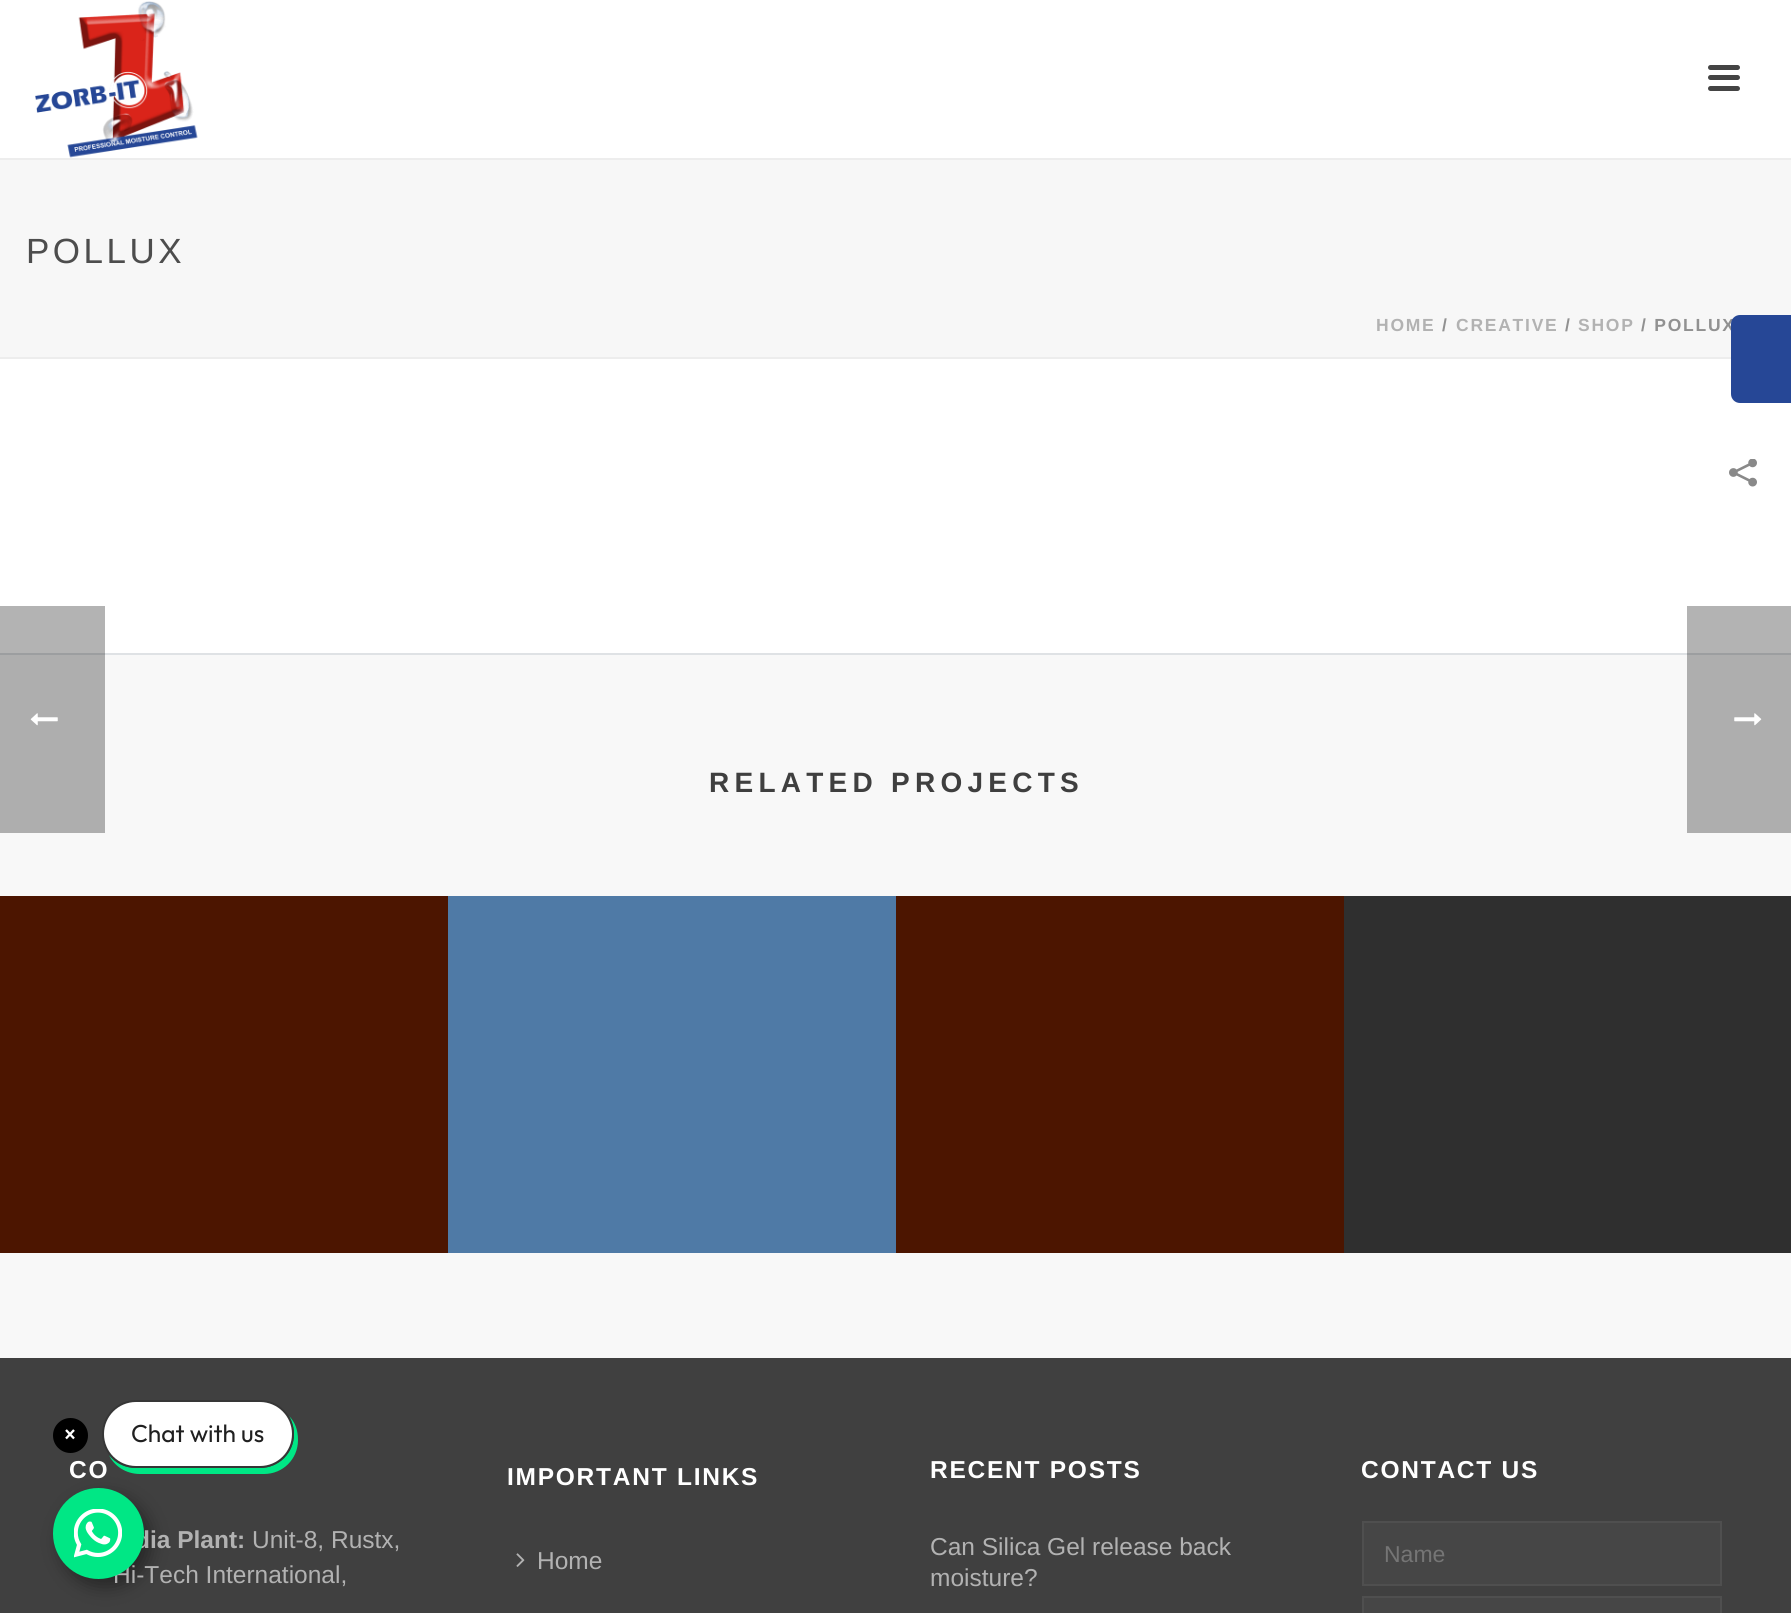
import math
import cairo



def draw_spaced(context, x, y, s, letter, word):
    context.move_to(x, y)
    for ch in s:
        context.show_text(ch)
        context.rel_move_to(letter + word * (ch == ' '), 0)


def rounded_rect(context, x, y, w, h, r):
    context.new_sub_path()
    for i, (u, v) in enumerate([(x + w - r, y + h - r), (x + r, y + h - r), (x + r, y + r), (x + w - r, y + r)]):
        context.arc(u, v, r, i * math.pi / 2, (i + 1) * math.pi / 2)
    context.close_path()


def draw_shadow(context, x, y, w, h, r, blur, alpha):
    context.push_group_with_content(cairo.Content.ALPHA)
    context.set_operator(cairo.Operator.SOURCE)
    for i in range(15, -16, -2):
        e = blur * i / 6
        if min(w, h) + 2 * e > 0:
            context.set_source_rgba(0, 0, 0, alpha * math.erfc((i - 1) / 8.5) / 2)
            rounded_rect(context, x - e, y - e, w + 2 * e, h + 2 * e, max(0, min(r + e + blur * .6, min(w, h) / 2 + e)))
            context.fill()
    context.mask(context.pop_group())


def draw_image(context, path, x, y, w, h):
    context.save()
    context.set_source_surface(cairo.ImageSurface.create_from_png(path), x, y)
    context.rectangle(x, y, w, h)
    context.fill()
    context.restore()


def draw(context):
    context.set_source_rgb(1, 1, 1)
    context.paint()
    context.set_source_rgb(179 / 255, 179 / 255, 179 / 255)
    context.rectangle(1687, 606, 104, 47)
    context.fill()
    context.rectangle(0, 606, 105, 47)
    context.fill()
    context.set_source_rgb(247 / 255, 247 / 255, 247 / 255)
    context.rectangle(0, 160, 1791, 197)
    context.fill()
    context.set_source_rgb(237 / 255, 237 / 255, 237 / 255)
    context.rectangle(0, 357, 1731, 2)
    context.fill()
    context.rectangle(0, 158, 1791, 2)
    context.fill()
    draw_image(context, "images/1.png", 35, 1, 163, 157)
    context.set_source_rgb(68 / 255, 68 / 255, 68 / 255)
    rounded_rect(context, 1708, 65, 32, 5, 2.5)
    context.fill()
    rounded_rect(context, 1708, 75, 32, 5, 2.5)
    context.fill()
    rounded_rect(context, 1708, 86, 32, 5, 2.5)
    context.fill()
    draw_image(context, "images/2.png", 1729, 459, 28, 28)
    context.set_source_rgb(248 / 255, 248 / 255, 248 / 255)
    context.rectangle(0, 655, 1791, 703)
    context.fill()
    context.set_source_rgb(174 / 255, 174 / 255, 174 / 255)
    context.rectangle(1687, 655, 104, 178)
    context.fill()
    context.rectangle(0, 655, 105, 178)
    context.fill()
    context.set_source_rgb(223 / 255, 226 / 255, 229 / 255)
    context.rectangle(105, 653, 1582, 2)
    context.fill()
    context.set_source_rgb(156 / 255, 158 / 255, 160 / 255)
    context.rectangle(1687, 653, 104, 2)
    context.fill()
    context.rectangle(0, 653, 105, 2)
    context.fill()
    context.set_source_rgb(76 / 255, 21 / 255, 0)
    context.rectangle(0, 896, 448, 357)
    context.fill()
    context.set_source_rgb(79 / 255, 122 / 255, 166 / 255)
    context.rectangle(448, 896, 448, 357)
    context.fill()
    context.set_source_rgb(76 / 255, 21 / 255, 0)
    context.rectangle(896, 896, 448, 357)
    context.fill()
    context.set_source_rgb(47 / 255, 47 / 255, 47 / 255)
    context.rectangle(1344, 896, 447, 357)
    context.fill()
    context.set_source_rgb(64 / 255, 64 / 255, 64 / 255)
    context.rectangle(0, 1358, 1791, 255)
    context.fill()
    draw_image(context, "images/3.png", 516, 1553, 9, 14)
    context.set_source_rgb(70 / 255, 70 / 255, 70 / 255)
    context.rectangle(1363, 1522, 358, 63)
    context.fill_preserve()
    context.set_source_rgb(79 / 255, 79 / 255, 79 / 255)
    context.stroke()
    context.set_source_rgb(70 / 255, 70 / 255, 70 / 255)
    context.rectangle(1363, 1597, 358, 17)
    context.fill_preserve()
    context.set_source_rgb(79 / 255, 79 / 255, 79 / 255)
    context.stroke()
    draw_image(context, "images/4.png", 30, 713, 28, 13)
    draw_image(context, "images/5.png", 1734, 713, 28, 13)
    context.set_source_rgb(0, 0, 0)
    context.arc(70.5, 1435.5, 17.5, 0, 2 * math.pi)
    context.fill()
    context.new_path()
    context.move_to(66, 1430)
    context.line_to(74, 1438.5)
    context.move_to(66, 1438.5)
    context.line_to(74, 1430)
    context.set_source_rgb(1, 1, 1)
    context.set_line_width(2.3)
    context.stroke()
    context.set_source_rgb(0, 0, 0)
    draw_shadow(context, 60, 1496, 91, 91, 45.5, 9, 0.4)
    context.set_source_rgb(0, 231 / 255, 133 / 255)
    context.new_path()
    context.move_to(109, 1455)
    context.curve_to(114, 1466, 126, 1474, 140, 1474)
    context.line_to(264, 1474)
    context.curve_to(283, 1474, 298, 1459, 298, 1440)
    context.curve_to(298, 1430, 295, 1422, 289, 1416)
    context.curve_to(292, 1421, 294, 1428, 294, 1434)
    context.curve_to(294, 1453, 279, 1468, 260, 1468)
    context.line_to(136, 1468)
    context.curve_to(125, 1468, 115, 1463, 109, 1455)
    context.close_path()
    context.fill()
    context.set_source_rgb(1, 1, 1)
    rounded_rect(context, 103, 1401, 190, 66, 33)
    context.fill_preserve()
    context.set_source_rgb(54 / 255, 54 / 255, 54 / 255)
    context.set_line_width(2)
    context.stroke()
    context.select_font_face("Liberation Sans")
    context.set_font_size(35)
    context.set_source_rgb(77 / 255, 77 / 255, 77 / 255)
    draw_spaced(context, 26, 263, "POLLUX", 3.5, 0)
    context.select_font_face("Liberation Sans", cairo.FontSlant.NORMAL, cairo.FontWeight.BOLD)
    context.set_font_size(17.5)
    context.set_source_rgb(178 / 255, 178 / 255, 178 / 255)
    draw_spaced(context, 1376, 331, "HOME", 1.75, 0)
    context.set_source_rgb(145 / 255, 145 / 255, 145 / 255)
    draw_spaced(context, 1442, 331, "/", 1.75, 0)
    context.set_source_rgb(178 / 255, 178 / 255, 178 / 255)
    draw_spaced(context, 1456, 331, "CREATIVE", 1.75, 0)
    context.set_source_rgb(145 / 255, 145 / 255, 145 / 255)
    draw_spaced(context, 1565, 331, "/", 1.75, 0)
    context.set_source_rgb(178 / 255, 178 / 255, 178 / 255)
    draw_spaced(context, 1578, 331, "SHOP", 1.75, 0)
    context.set_source_rgb(145 / 255, 145 / 255, 145 / 255)
    draw_spaced(context, 1641, 331, "/ POLLUX", 1.75, 0)
    context.set_font_size(28)
    context.set_source_rgb(63 / 255, 63 / 255, 63 / 255)
    draw_spaced(context, 709, 792, "RELATED PROJECTS", 5.25, 0)
    context.set_font_size(24.5)
    context.set_source_rgb(1, 1, 1)
    draw_spaced(context, 69, 1478, "CO", 1.75, 0)
    context.set_source_rgb(178 / 255, 178 / 255, 178 / 255)
    context.move_to(135, 1548)
    context.show_text("dia Plant:")
    context.select_font_face("Liberation Sans")
    context.move_to(252, 1548)
    context.show_text("Unit-8, Rustx,")
    context.move_to(113, 1583)
    context.show_text("Hi-Tech International,")
    context.select_font_face("Liberation Sans", cairo.FontSlant.NORMAL, cairo.FontWeight.BOLD)
    context.set_source_rgb(1, 1, 1)
    draw_spaced(context, 507, 1485, "IMPORTANT LINKS", 1.75, 0)
    context.select_font_face("Liberation Sans")
    context.set_source_rgb(178 / 255, 178 / 255, 178 / 255)
    context.move_to(537, 1569)
    context.show_text("Home")
    context.select_font_face("Liberation Sans", cairo.FontSlant.NORMAL, cairo.FontWeight.BOLD)
    context.set_source_rgb(1, 1, 1)
    draw_spaced(context, 930, 1478, "RECENT POSTS", 1.75, 0)
    context.select_font_face("Liberation Sans")
    context.set_source_rgb(178 / 255, 178 / 255, 178 / 255)
    context.move_to(930, 1555)
    context.show_text("Can Silica Gel release back")
    context.move_to(930, 1586)
    context.show_text("moisture?")
    context.select_font_face("Liberation Sans", cairo.FontSlant.NORMAL, cairo.FontWeight.BOLD)
    context.set_source_rgb(1, 1, 1)
    draw_spaced(context, 1361, 1478, "CONTACT US", 1.75, 0)
    context.select_font_face("Liberation Sans")
    context.set_font_size(23)
    context.set_source_rgb(117 / 255, 117 / 255, 117 / 255)
    context.move_to(1384, 1562)
    context.show_text("Name")
    context.set_source_rgb(38 / 255, 71 / 255, 150 / 255)
    context.new_path()
    context.move_to(1740, 315)
    context.line_to(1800, 315)
    context.line_to(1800, 403)
    context.line_to(1740, 403)
    context.curve_to(1735, 403, 1731, 399, 1731, 394)
    context.line_to(1731, 324)
    context.curve_to(1731, 319, 1735, 315, 1740, 315)
    context.close_path()
    context.fill()
    context.select_font_face("Outfit")
    context.set_font_size(24.5)
    context.set_source_rgb(32 / 255, 32 / 255, 32 / 255)
    context.move_to(131, 1442)
    context.show_text("Chat with us")
    context.set_source_rgb(0, 231 / 255, 133 / 255)
    context.new_path()
    context.arc(98.5, 1533.5, 45.5, 0, 2 * math.pi)
    context.fill()
    draw_image(context, "images/6.png", 74, 1509, 48, 49)


surface = cairo.ImageSurface(cairo.Format.RGB24, 1791, 1613)
context = cairo.Context(surface)
options = cairo.FontOptions()
options.set_hint_metrics(cairo.HintMetrics.OFF)
options.set_hint_style(cairo.HintStyle.NONE)
context.set_font_options(options)
context.set_miter_limit(4)
draw(context)
surface.write_to_png("out.png")
